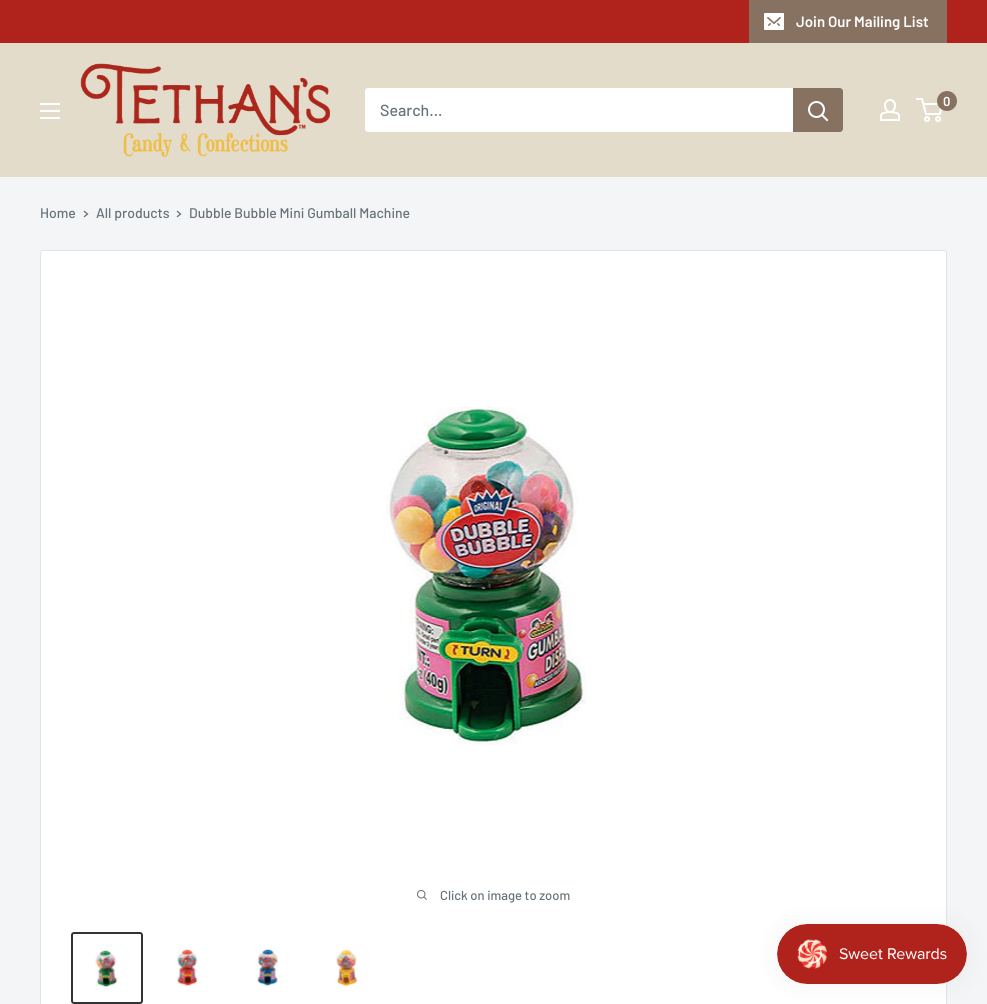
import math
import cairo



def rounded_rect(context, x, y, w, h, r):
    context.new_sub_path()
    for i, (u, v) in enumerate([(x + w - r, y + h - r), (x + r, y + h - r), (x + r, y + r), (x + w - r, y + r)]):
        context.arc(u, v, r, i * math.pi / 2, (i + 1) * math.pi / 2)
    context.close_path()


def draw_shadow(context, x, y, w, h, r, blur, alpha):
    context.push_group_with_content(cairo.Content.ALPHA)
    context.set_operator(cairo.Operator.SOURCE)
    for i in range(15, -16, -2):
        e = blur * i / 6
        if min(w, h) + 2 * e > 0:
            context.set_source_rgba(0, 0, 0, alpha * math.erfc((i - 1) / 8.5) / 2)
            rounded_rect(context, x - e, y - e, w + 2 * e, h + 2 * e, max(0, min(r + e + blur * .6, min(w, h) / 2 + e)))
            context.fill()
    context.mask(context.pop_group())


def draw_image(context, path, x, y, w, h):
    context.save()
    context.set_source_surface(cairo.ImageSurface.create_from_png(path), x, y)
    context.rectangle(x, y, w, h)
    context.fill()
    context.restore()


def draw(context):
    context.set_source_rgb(243 / 255, 245 / 255, 246 / 255)
    context.paint()
    context.set_source_rgb(175 / 255, 35 / 255, 28 / 255)
    context.rectangle(0, 0, 987, 43)
    context.fill()
    context.set_source_rgb(135 / 255, 114 / 255, 98 / 255)
    context.rectangle(749, 0, 198, 43)
    context.fill()
    draw_image(context, "images/1.png", 764, 13, 20, 17)
    context.set_source_rgb(228 / 255, 220 / 255, 202 / 255)
    context.rectangle(0, 43, 987, 134)
    context.fill()
    draw_image(context, "images/2.png", 80, 63, 250, 94)
    draw_image(context, "images/3.png", 880, 99, 20, 22)
    context.arc(927, 119, 2, 0, 2 * math.pi)
    context.set_source_rgb(1, 1, 1)
    context.stroke()
    context.arc(938, 119, 2, 0, 2 * math.pi)
    context.stroke()
    context.new_path()
    context.move_to(923.5, 104)
    context.line_to(941.5, 104)
    context.line_to(940, 114)
    context.line_to(926, 114)
    context.line_to(922, 99)
    context.line_to(916, 99)
    context.stroke()
    context.set_source_rgb(135 / 255, 114 / 255, 98 / 255)
    context.arc(947, 101, 10, 0, 2 * math.pi)
    context.fill()
    draw_image(context, "images/4.png", 40, 103, 20, 16)
    context.set_source_rgb(1, 1, 1)
    rounded_rect(context, 365, 88, 478, 44, 3)
    context.fill()
    context.set_source_rgb(135 / 255, 114 / 255, 98 / 255)
    context.new_path()
    context.move_to(793, 88)
    context.line_to(840, 88)
    context.curve_to(841.5, 88, 843, 89.5, 843, 91)
    context.line_to(843, 129)
    context.curve_to(843, 130.5, 841.5, 132, 840, 132)
    context.line_to(793, 132)
    context.close_path()
    context.fill()
    context.new_path()
    context.move_to(827, 120)
    context.line_to(822, 115)
    context.set_source_rgb(1, 1, 1)
    context.set_line_cap(cairo.LineCap.SQUARE)
    context.stroke()
    context.arc(816.5, 109.5, 7.5, 0, 2 * math.pi)
    context.set_line_cap(cairo.LineCap.BUTT)
    context.stroke()
    context.new_path()
    context.move_to(84.5, 211.5)
    context.line_to(87.5, 214)
    context.line_to(84.5, 216.5)
    context.set_source_rgb(103 / 255, 114 / 255, 121 / 255)
    context.set_line_width(1.3)
    context.set_line_cap(cairo.LineCap.SQUARE)
    context.stroke()
    context.new_path()
    context.move_to(177.5, 211.5)
    context.line_to(180.5, 214)
    context.line_to(177.5, 216.5)
    context.stroke()
    context.set_source_rgb(1, 1, 1)
    rounded_rect(context, 40.5, 250.5, 906, 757, 2.5)
    context.fill_preserve()
    context.set_source_rgb(225 / 255, 227 / 255, 228 / 255)
    context.set_line_width(1)
    context.set_line_cap(cairo.LineCap.BUTT)
    context.stroke()
    draw_image(context, "images/5.png", 386, 407, 200, 338)
    draw_image(context, "images/6.png", 417, 890, 10, 10)
    rounded_rect(context, 72, 933, 70, 70, 2)
    context.set_source_rgb(51 / 255, 51 / 255, 51 / 255)
    context.set_line_width(2)
    context.stroke()
    draw_image(context, "images/7.png", 95, 950, 23, 37)
    draw_image(context, "images/8.png", 177, 949, 21, 38)
    draw_image(context, "images/9.png", 257, 948, 21, 38)
    draw_image(context, "images/10.png", 335, 949, 23, 38)
    context.set_source_rgb(0, 0, 0)
    draw_shadow(context, 777, 924, 190, 60, 30, 12.5, 0.05)
    draw_image(context, "images/11.png", 777, 924, 190, 60)
    context.select_font_face("Barlow SemiBold")
    context.set_font_size(15)
    context.set_source_rgb(1, 1, 1)
    context.move_to(796, 27)
    context.show_text("Join Our Mailing List")
    context.set_font_size(13)
    context.move_to(943, 106)
    context.show_text("0")
    context.select_font_face("Barlow Medium")
    context.set_font_size(16)
    context.set_source_rgb(103 / 255, 114 / 255, 121 / 255)
    context.move_to(380, 116)
    context.show_text("Search...")
    context.set_font_size(14)
    context.move_to(40, 218)
    context.show_text("Home")
    context.move_to(96, 218)
    context.show_text("All products")
    context.move_to(189, 218)
    context.show_text("Dubble Bubble Mini Gumball Machine")
    context.set_font_size(13)
    context.move_to(440, 900)
    context.show_text("Click on image to zoom")


surface = cairo.ImageSurface(cairo.Format.RGB24, 987, 1004)
context = cairo.Context(surface)
options = cairo.FontOptions()
options.set_hint_metrics(cairo.HintMetrics.OFF)
options.set_hint_style(cairo.HintStyle.NONE)
context.set_font_options(options)
context.set_miter_limit(4)
draw(context)
surface.write_to_png("out.png")
